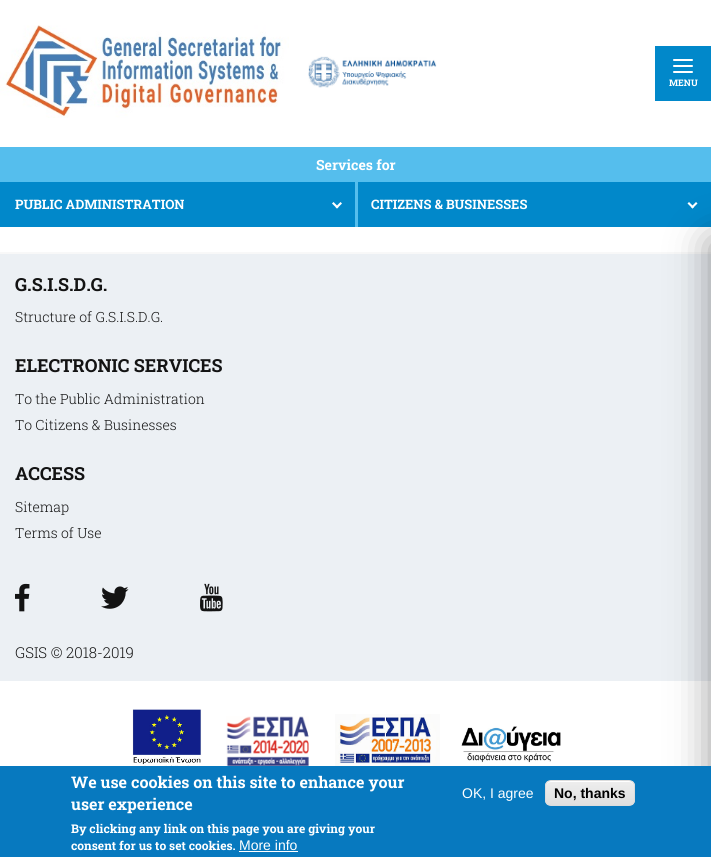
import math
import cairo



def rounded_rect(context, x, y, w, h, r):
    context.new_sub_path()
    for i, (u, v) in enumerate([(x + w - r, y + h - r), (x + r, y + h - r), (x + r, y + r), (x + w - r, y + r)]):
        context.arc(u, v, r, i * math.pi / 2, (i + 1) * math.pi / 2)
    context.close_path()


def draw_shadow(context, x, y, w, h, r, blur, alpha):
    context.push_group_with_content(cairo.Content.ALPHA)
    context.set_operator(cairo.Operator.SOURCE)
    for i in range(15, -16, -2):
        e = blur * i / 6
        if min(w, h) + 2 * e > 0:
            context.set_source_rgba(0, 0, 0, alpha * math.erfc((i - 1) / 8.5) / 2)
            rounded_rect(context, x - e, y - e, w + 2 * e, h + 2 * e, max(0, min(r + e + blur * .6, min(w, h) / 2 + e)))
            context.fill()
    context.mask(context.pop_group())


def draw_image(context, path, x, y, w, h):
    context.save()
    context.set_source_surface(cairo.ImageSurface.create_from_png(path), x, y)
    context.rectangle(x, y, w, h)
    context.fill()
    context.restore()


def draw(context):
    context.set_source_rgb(1, 1, 1)
    context.paint()
    draw_image(context, "images/1.png", 0, 25, 289, 93)
    draw_image(context, "images/2.png", 308, 56, 129, 32)
    context.set_source_rgb(1 / 255, 136 / 255, 202 / 255)
    context.rectangle(655, 46, 56, 55)
    context.fill()
    context.set_source_rgb(1, 1, 1)
    rounded_rect(context, 673, 59, 20, 2, 1)
    context.fill()
    rounded_rect(context, 673, 65, 20, 2, 1)
    context.fill()
    rounded_rect(context, 673, 71, 20, 2, 1)
    context.fill()
    context.set_source_rgb(85 / 255, 190 / 255, 237 / 255)
    context.rectangle(0, 147, 711, 35)
    context.fill()
    context.set_source_rgb(1 / 255, 136 / 255, 202 / 255)
    context.rectangle(0, 182, 711, 45)
    context.fill()
    context.set_source_rgb(1, 1, 1)
    context.new_path()
    context.move_to(340.5, 202)
    context.line_to(342, 203.5)
    context.line_to(337, 208.5)
    context.line_to(335.5, 207)
    context.close_path()
    context.fill()
    context.new_path()
    context.move_to(333.5, 202)
    context.line_to(338.5, 207)
    context.line_to(337, 208.5)
    context.line_to(332, 203.5)
    context.close_path()
    context.fill()
    context.set_source_rgb(85 / 255, 190 / 255, 237 / 255)
    context.rectangle(355, 182, 3, 45)
    context.fill()
    context.set_source_rgb(1, 1, 1)
    context.new_path()
    context.move_to(696, 202)
    context.line_to(697.5, 203.5)
    context.line_to(692.5, 208.5)
    context.line_to(691, 207)
    context.close_path()
    context.fill()
    context.new_path()
    context.move_to(689, 202)
    context.line_to(694, 207)
    context.line_to(692.5, 208.5)
    context.line_to(687.5, 203.5)
    context.close_path()
    context.fill()
    context.set_source_rgb(248 / 255, 248 / 255, 248 / 255)
    context.rectangle(0, 252, 711, 2)
    context.fill()
    context.set_source_rgb(236 / 255, 240 / 255, 244 / 255)
    context.rectangle(0, 254, 711, 427)
    context.fill()
    context.set_source_rgb(0, 0, 0)
    draw_shadow(context, 711, 242, 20, 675, 0, 20, 0.4)
    draw_image(context, "images/3.png", 15, 583, 15, 29)
    draw_image(context, "images/4.png", 101, 586, 28, 23)
    draw_image(context, "images/5.png", 200, 583, 23, 29)
    draw_image(context, "images/6.png", 132, 709, 70, 57)
    draw_image(context, "images/7.png", 226, 716, 83, 50)
    draw_image(context, "images/8.png", 335, 714, 105, 52)
    draw_image(context, "images/9.png", 461, 726, 100, 37)
    context.set_source_rgb(7 / 255, 121 / 255, 191 / 255)
    context.rectangle(0, 766, 711, 91)
    context.fill()
    context.set_source_rgb(1, 1, 1)
    context.rectangle(239, 851, 59, 1)
    context.fill()
    context.save()
    rounded_rect(context, 545, 780, 90, 26, 6)
    context.clip()
    gradient = cairo.LinearGradient(590, 781, 590, 805)
    gradient.add_color_stop_rgba(0.05, 237 / 255, 237 / 255, 237 / 255, 1)
    gradient.add_color_stop_rgba(1, 223 / 255, 223 / 255, 223 / 255, 1)
    context.set_source(gradient)
    context.rectangle(545, 781, 90, 24)
    context.fill()
    context.restore()
    context.new_path()
    context.move_to(551, 782)
    context.line_to(629, 782)
    context.curve_to(632, 782, 634, 784, 634, 787)
    context.curve_to(634, 778, 622, 781, 616, 781)
    context.line_to(564, 781)
    context.curve_to(558, 781, 546, 778, 546, 787)
    context.curve_to(546, 784, 548, 782, 551, 782)
    context.close_path()
    context.fill()
    rounded_rect(context, 545.5, 780.5, 89, 25, 5.5)
    context.set_source_rgb(220 / 255, 220 / 255, 220 / 255)
    context.set_line_width(1)
    context.stroke()
    context.select_font_face("Roboto Slab", cairo.FontSlant.NORMAL, cairo.FontWeight.BOLD)
    context.set_font_size(9)
    context.set_source_rgb(1, 1, 1)
    context.move_to(669, 86)
    context.show_text("MENU")
    context.set_font_size(14)
    context.move_to(316, 170)
    context.show_text("Services for")
    context.set_font_size(13)
    context.move_to(15, 209)
    context.show_text("PUBLIC ADMINISTRATION")
    context.move_to(371, 209)
    context.show_text("CITIZENS & BUSINESSES")
    context.set_font_size(18)
    context.set_source_rgb(19 / 255, 19 / 255, 19 / 255)
    context.move_to(15, 291)
    context.show_text("G.S.I.S.D.G.")
    context.select_font_face("Roboto Slab Light")
    context.set_font_size(14)
    context.move_to(15, 322)
    context.show_text("Structure of G.S.I.S.D.G.")
    context.select_font_face("Roboto Slab", cairo.FontSlant.NORMAL, cairo.FontWeight.BOLD)
    context.set_font_size(18)
    context.move_to(15, 372)
    context.show_text("ELECTRONIC SERVICES")
    context.select_font_face("Roboto Slab Light")
    context.set_font_size(14)
    context.move_to(15, 404)
    context.show_text("To the Public Administration")
    context.move_to(15, 430)
    context.show_text("To Citizens & Businesses")
    context.select_font_face("Roboto Slab", cairo.FontSlant.NORMAL, cairo.FontWeight.BOLD)
    context.set_font_size(18)
    context.move_to(15, 480)
    context.show_text("ACCESS")
    context.select_font_face("Roboto Slab Light")
    context.set_font_size(14)
    context.move_to(15, 512)
    context.show_text("Sitemap")
    context.move_to(15, 538)
    context.show_text("Terms of Use")
    context.set_font_size(15)
    context.move_to(15, 658)
    context.show_text("GSIS © 2018-2019")
    context.select_font_face("Roboto Slab", cairo.FontSlant.NORMAL, cairo.FontWeight.BOLD)
    context.set_font_size(16)
    context.set_source_rgb(1, 1, 1)
    context.move_to(71, 788)
    context.show_text("We use cookies on this site to enhance your")
    context.move_to(71, 810)
    context.show_text("user experience")
    context.set_font_size(12)
    context.move_to(71, 833)
    context.show_text("By clicking any link on this page you are giving your")
    context.move_to(71, 850)
    context.show_text("consent for us to set cookies.")
    context.select_font_face("Liberation Sans")
    context.set_font_size(14)
    context.move_to(239, 850)
    context.show_text("More info")
    context.move_to(462, 798)
    context.show_text("OK, I agree")
    context.select_font_face("Liberation Sans", cairo.FontSlant.NORMAL, cairo.FontWeight.BOLD)
    context.set_source_rgb(0, 0, 0)
    context.move_to(554, 798)
    context.show_text("No, thanks")


surface = cairo.ImageSurface(cairo.Format.RGB24, 711, 857)
context = cairo.Context(surface)
options = cairo.FontOptions()
options.set_hint_metrics(cairo.HintMetrics.OFF)
options.set_hint_style(cairo.HintStyle.NONE)
context.set_font_options(options)
context.set_miter_limit(4)
draw(context)
surface.write_to_png("out.png")
